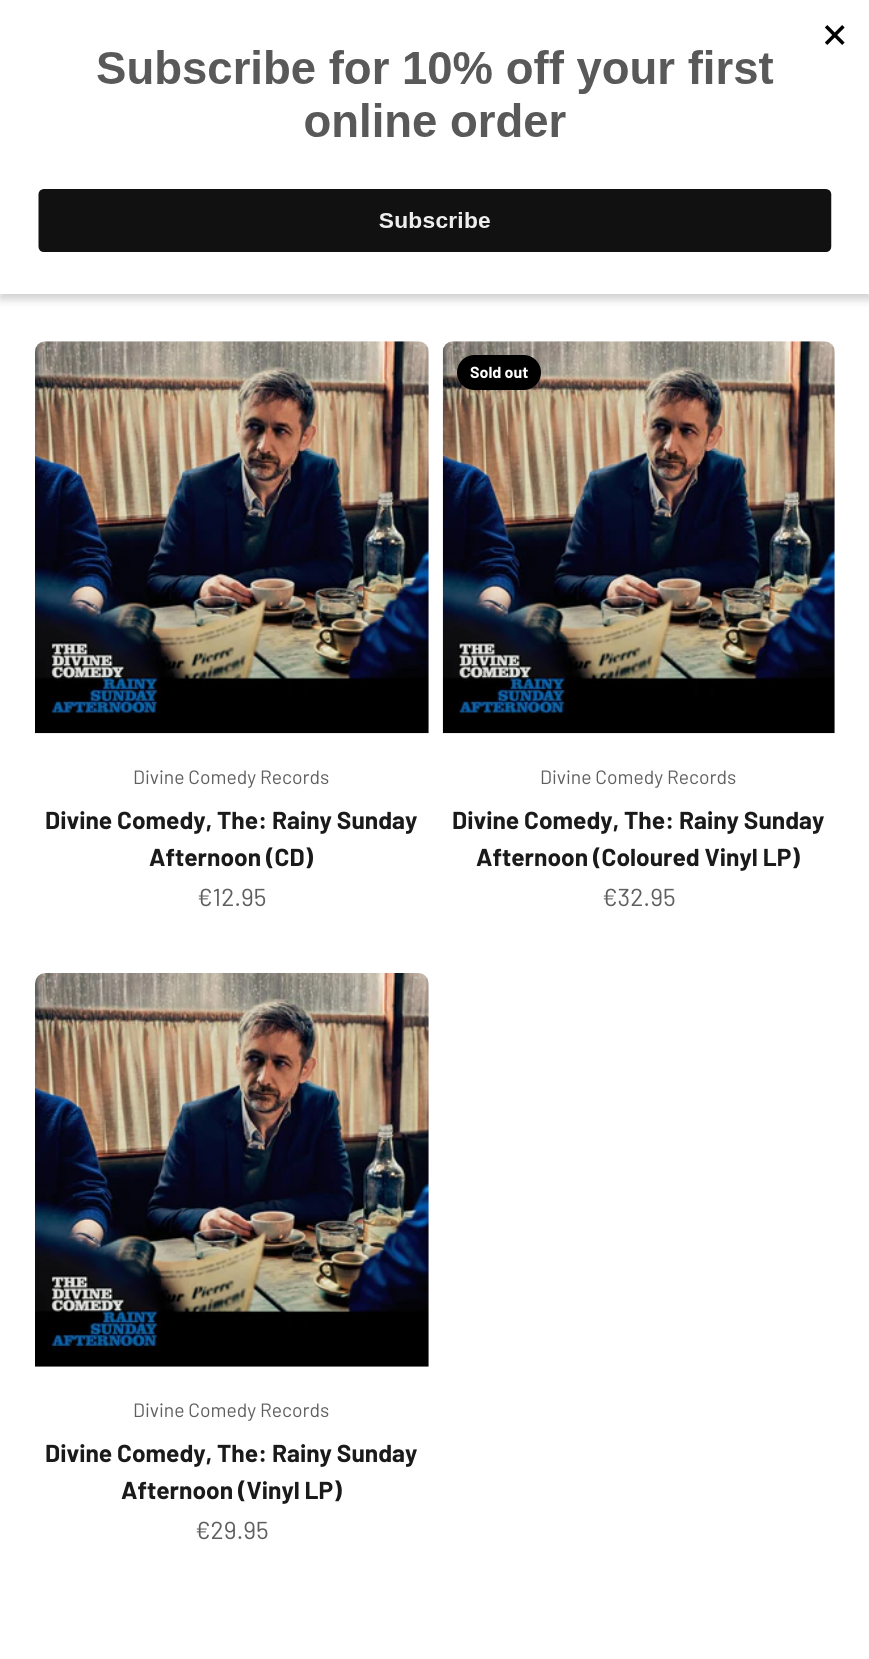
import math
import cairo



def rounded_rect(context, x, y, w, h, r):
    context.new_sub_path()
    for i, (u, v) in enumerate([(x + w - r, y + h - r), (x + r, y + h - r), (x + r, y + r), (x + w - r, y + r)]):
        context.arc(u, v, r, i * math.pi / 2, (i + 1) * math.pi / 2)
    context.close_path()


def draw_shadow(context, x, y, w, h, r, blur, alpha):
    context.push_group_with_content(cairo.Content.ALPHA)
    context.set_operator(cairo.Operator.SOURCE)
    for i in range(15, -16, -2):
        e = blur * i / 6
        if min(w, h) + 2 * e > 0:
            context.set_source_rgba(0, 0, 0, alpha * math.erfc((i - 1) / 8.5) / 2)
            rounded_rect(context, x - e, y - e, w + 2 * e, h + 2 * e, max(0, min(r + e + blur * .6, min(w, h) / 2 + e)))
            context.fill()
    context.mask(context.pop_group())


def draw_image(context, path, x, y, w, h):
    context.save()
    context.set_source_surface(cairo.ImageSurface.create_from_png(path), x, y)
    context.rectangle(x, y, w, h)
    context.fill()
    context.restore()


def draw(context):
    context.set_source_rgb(1, 1, 1)
    context.paint()
    context.set_source_rgb(0, 0, 0)
    draw_shadow(context, 0, 5, 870, 294, 0, 5, 0.2)
    context.set_source_rgb(1, 1, 1)
    context.rectangle(0, 0, 869, 294)
    context.fill()
    draw_image(context, "images/1.png", 38, 25, 807, 227)
    draw_image(context, "images/2.png", 35, 341, 394, 393)
    draw_image(context, "images/3.png", 442, 341, 393, 393)
    context.set_source_rgb(0, 0, 0)
    rounded_rect(context, 457, 355, 84, 35, 17.5)
    context.fill()
    draw_image(context, "images/4.png", 35, 973, 394, 394)
    context.select_font_face("Barlow")
    context.set_font_size(19.25)
    context.set_source_rgb(95 / 255, 95 / 255, 95 / 255)
    context.move_to(133, 784)
    context.show_text("Divine Comedy Records")
    context.select_font_face("Barlow", cairo.FontSlant.NORMAL, cairo.FontWeight.BOLD)
    context.set_font_size(24.5)
    context.set_source_rgb(26 / 255, 26 / 255, 26 / 255)
    context.move_to(45, 829)
    context.show_text("Divine Comedy, The: Rainy Sunday")
    context.move_to(149, 866)
    context.show_text("Afternoon (CD)")
    context.select_font_face("Barlow")
    context.set_source_rgb(95 / 255, 95 / 255, 95 / 255)
    context.move_to(197, 906)
    context.show_text("€12.95")
    context.select_font_face("Barlow", cairo.FontSlant.NORMAL, cairo.FontWeight.BOLD)
    context.set_font_size(16)
    context.set_source_rgb(1, 1, 1)
    context.move_to(470, 378)
    context.show_text("Sold out")
    context.select_font_face("Barlow")
    context.set_font_size(19.25)
    context.set_source_rgb(95 / 255, 95 / 255, 95 / 255)
    context.move_to(540, 784)
    context.show_text("Divine Comedy Records")
    context.select_font_face("Barlow", cairo.FontSlant.NORMAL, cairo.FontWeight.BOLD)
    context.set_font_size(24.5)
    context.set_source_rgb(26 / 255, 26 / 255, 26 / 255)
    context.move_to(452, 829)
    context.show_text("Divine Comedy, The: Rainy Sunday")
    context.move_to(476, 866)
    context.show_text("Afternoon (Coloured Vinyl LP)")
    context.select_font_face("Barlow")
    context.set_source_rgb(95 / 255, 95 / 255, 95 / 255)
    context.move_to(602, 906)
    context.show_text("€32.95")
    context.set_font_size(19.25)
    context.move_to(133, 1417)
    context.show_text("Divine Comedy Records")
    context.select_font_face("Barlow", cairo.FontSlant.NORMAL, cairo.FontWeight.BOLD)
    context.set_font_size(24.5)
    context.set_source_rgb(26 / 255, 26 / 255, 26 / 255)
    context.move_to(45, 1462)
    context.show_text("Divine Comedy, The: Rainy Sunday")
    context.move_to(121, 1499)
    context.show_text("Afternoon (Vinyl LP)")
    context.select_font_face("Barlow")
    context.set_source_rgb(95 / 255, 95 / 255, 95 / 255)
    context.move_to(195, 1539)
    context.show_text("€29.95")


surface = cairo.ImageSurface(cairo.Format.RGB24, 869, 1659)
context = cairo.Context(surface)
options = cairo.FontOptions()
options.set_hint_metrics(cairo.HintMetrics.OFF)
options.set_hint_style(cairo.HintStyle.NONE)
context.set_font_options(options)
context.set_miter_limit(4)
draw(context)
surface.write_to_png("out.png")
